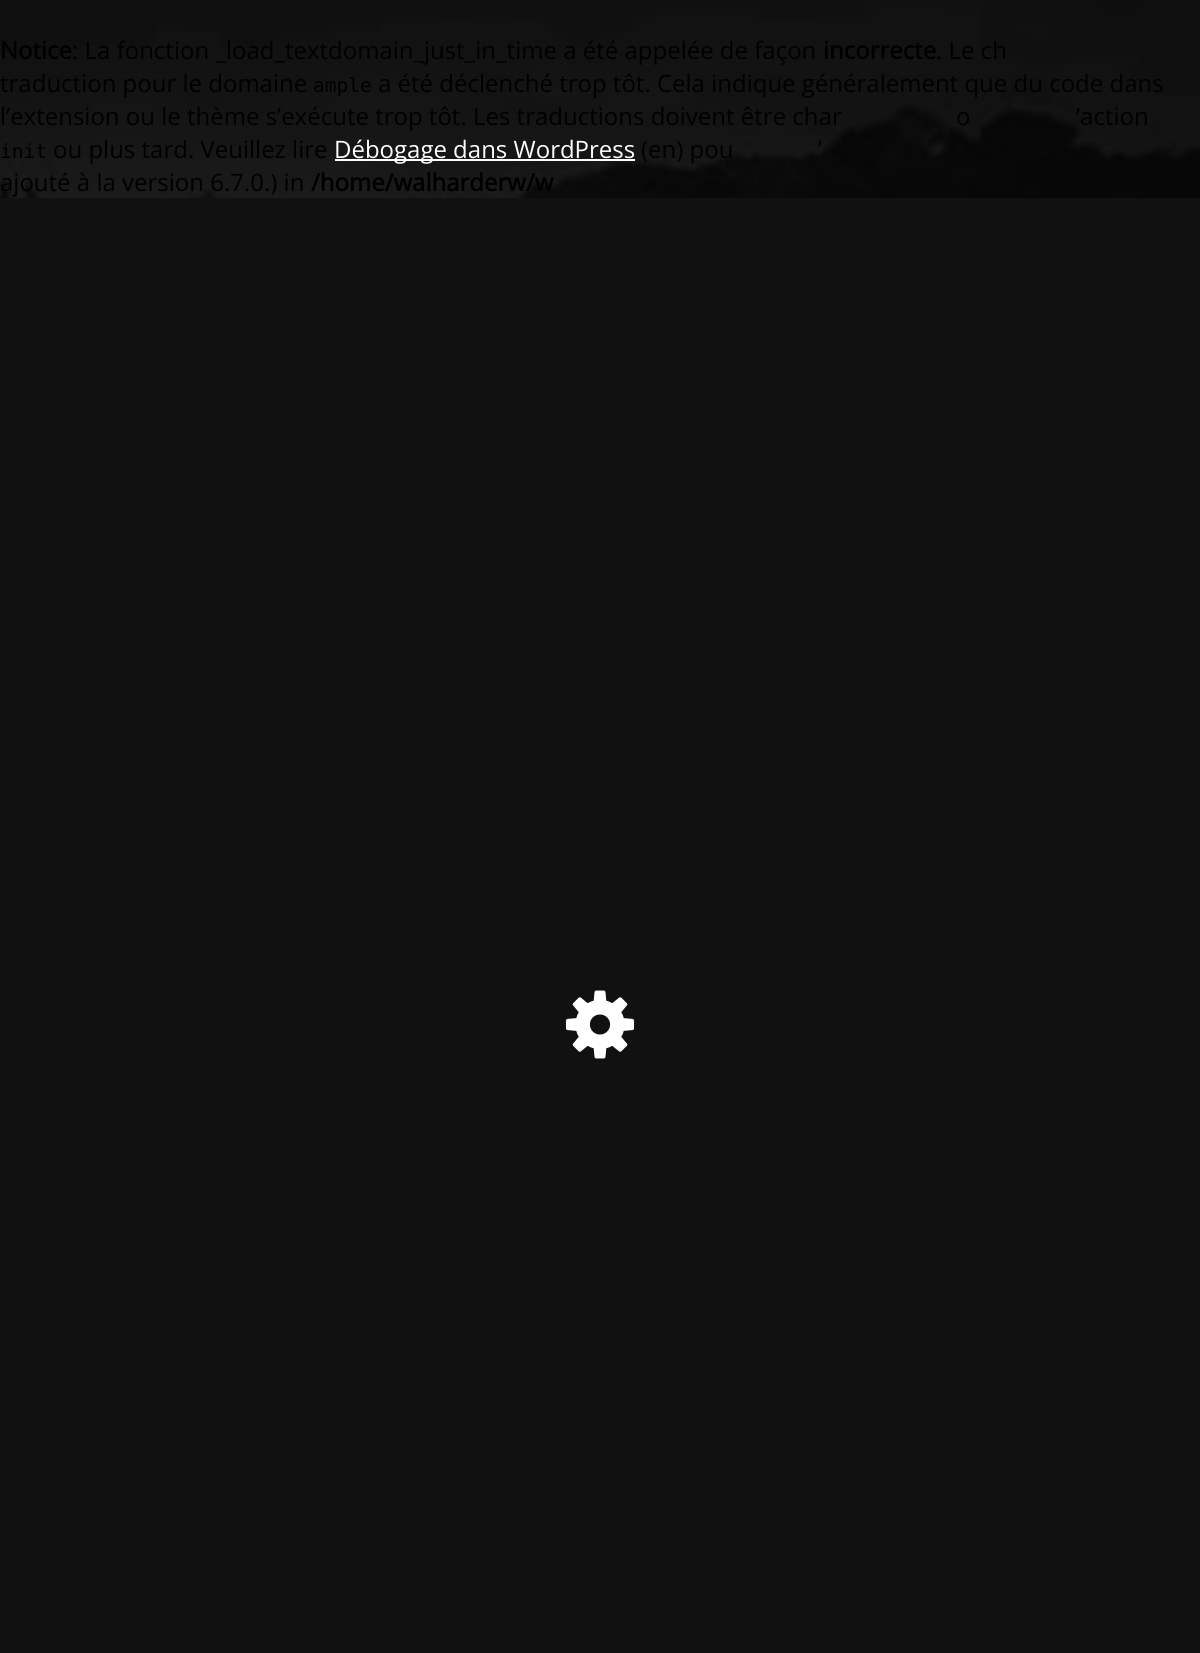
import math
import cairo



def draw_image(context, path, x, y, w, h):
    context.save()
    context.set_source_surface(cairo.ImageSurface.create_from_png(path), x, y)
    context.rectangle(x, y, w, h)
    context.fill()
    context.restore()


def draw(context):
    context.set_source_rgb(1, 1, 1)
    context.paint()
    draw_image(context, "images/1.png", 0, 0, 1200, 198)
    context.set_source_rgb(17 / 255, 17 / 255, 17 / 255)
    context.rectangle(0, 198, 1200, 1455)
    context.fill()
    draw_image(context, "images/2.png", 565, 990, 70, 69)
    context.set_source_rgb(1, 1, 1)
    context.rectangle(335, 159, 300, 2)
    context.fill()
    context.select_font_face("Open Sans", cairo.FontSlant.NORMAL, cairo.FontWeight.BOLD)
    context.set_font_size(24)
    context.set_source_rgb(0, 0, 0)
    context.move_to(0, 59)
    context.show_text("Notice")
    context.select_font_face("Open Sans")
    context.move_to(72, 59)
    context.show_text(": La fonction _load_textdomain_just_in_time a été appelée de façon")
    context.select_font_face("Open Sans", cairo.FontSlant.NORMAL, cairo.FontWeight.BOLD)
    context.move_to(823, 59)
    context.show_text("incorrecte")
    context.select_font_face("Open Sans")
    context.move_to(936, 59)
    context.show_text(". Le ch")
    context.move_to(0, 92)
    context.show_text("traduction pour le domaine")
    context.select_font_face("DejaVu Sans Mono")
    context.set_font_size(19.5)
    context.move_to(313, 92)
    context.show_text("ample")
    context.select_font_face("Open Sans")
    context.set_font_size(24)
    context.move_to(378, 92)
    context.show_text("a été déclenché trop tôt. Cela indique généralement que du code dans")
    context.move_to(0, 125)
    context.show_text("l’extension ou le thème s’exécute trop tôt. Les traductions doivent être char")
    context.move_to(956, 125)
    context.show_text("o")
    context.move_to(1076, 125)
    context.show_text("’action")
    context.select_font_face("DejaVu Sans Mono")
    context.set_font_size(19.5)
    context.move_to(0, 158)
    context.show_text("init")
    context.select_font_face("Open Sans")
    context.set_font_size(24)
    context.move_to(53, 158)
    context.show_text("ou plus tard. Veuillez lire")
    context.set_source_rgb(1, 1, 1)
    context.move_to(334, 158)
    context.show_text("Débogage dans WordPress")
    context.set_source_rgb(0, 0, 0)
    context.move_to(641, 158)
    context.show_text("(en) pou")
    context.move_to(818, 158)
    context.show_text("’")
    context.move_to(0, 191)
    context.show_text("ajouté à la version 6.7.0.) in")
    context.select_font_face("Open Sans", cairo.FontSlant.NORMAL, cairo.FontWeight.BOLD)
    context.move_to(311, 191)
    context.show_text("/home/walharderw/w")


surface = cairo.ImageSurface(cairo.Format.RGB24, 1200, 1653)
context = cairo.Context(surface)
options = cairo.FontOptions()
options.set_hint_metrics(cairo.HintMetrics.OFF)
options.set_hint_style(cairo.HintStyle.NONE)
context.set_font_options(options)
context.set_miter_limit(4)
draw(context)
surface.write_to_png("out.png")
